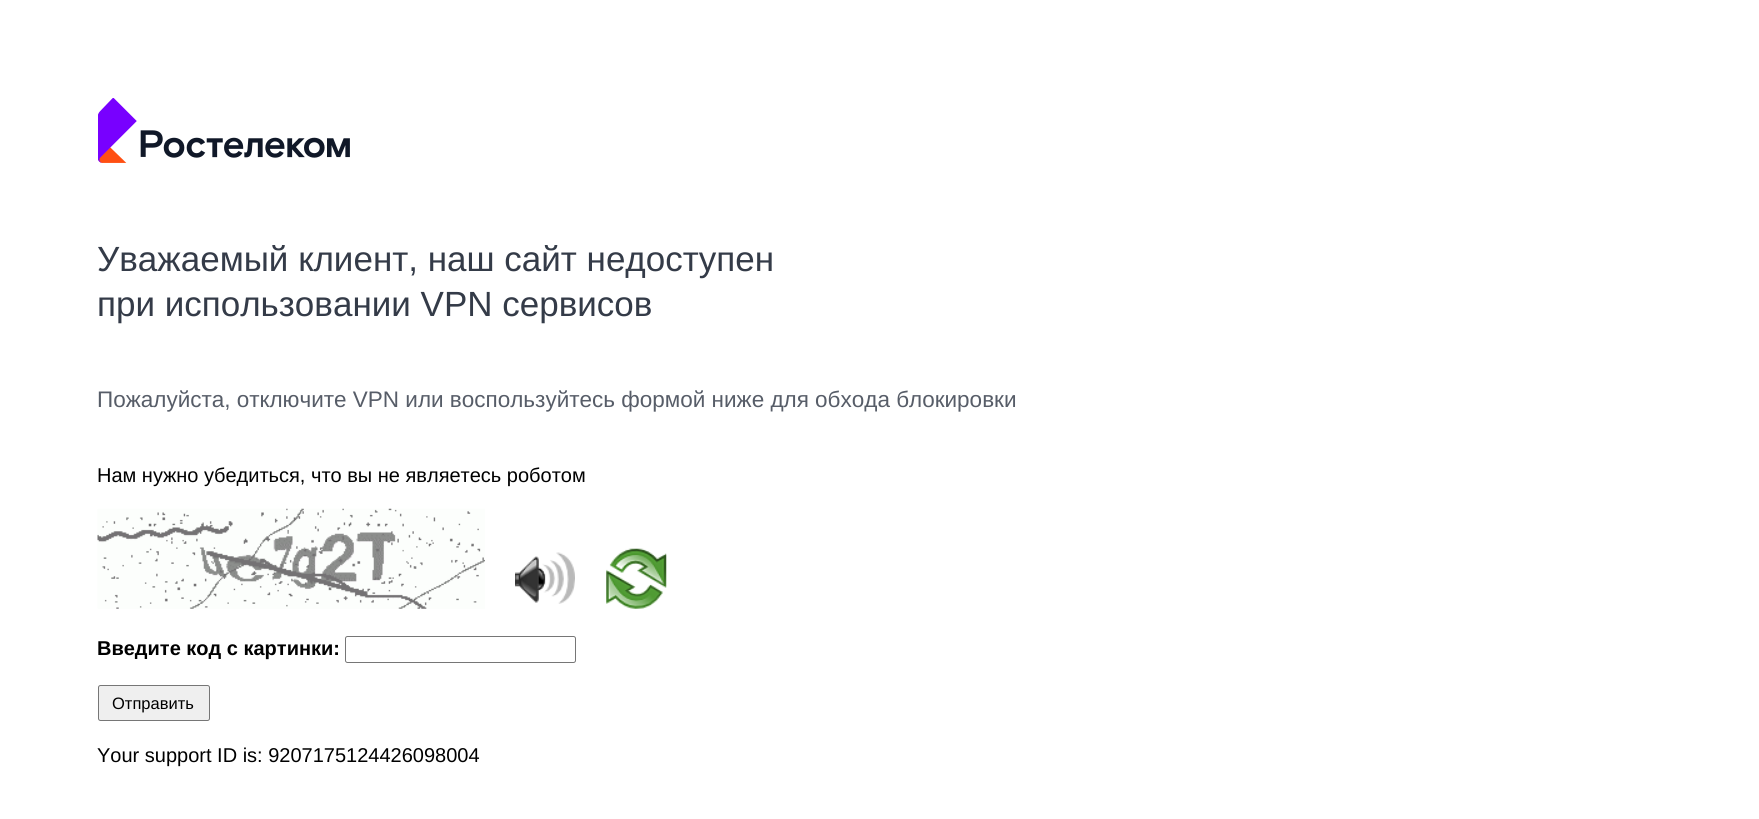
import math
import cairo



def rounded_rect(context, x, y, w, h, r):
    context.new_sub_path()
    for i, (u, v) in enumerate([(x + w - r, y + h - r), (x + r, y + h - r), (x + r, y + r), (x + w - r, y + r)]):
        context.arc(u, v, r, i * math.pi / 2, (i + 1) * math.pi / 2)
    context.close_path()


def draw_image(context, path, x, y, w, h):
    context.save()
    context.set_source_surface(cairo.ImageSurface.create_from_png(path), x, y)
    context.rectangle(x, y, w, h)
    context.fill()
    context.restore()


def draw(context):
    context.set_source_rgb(1, 1, 1)
    context.paint()
    draw_image(context, "images/1.png", 98, 98, 252, 65)
    draw_image(context, "images/2.png", 97, 508, 388, 101)
    draw_image(context, "images/3.png", 515, 552, 60, 52)
    draw_image(context, "images/4.png", 606, 548, 61, 61)
    rounded_rect(context, 345.5, 636.5, 230, 26, 2)
    context.set_source_rgb(118 / 255, 118 / 255, 118 / 255)
    context.set_line_width(1)
    context.stroke()
    context.set_source_rgb(239 / 255, 239 / 255, 239 / 255)
    rounded_rect(context, 98.5, 685.5, 111, 35, 2)
    context.fill_preserve()
    context.set_source_rgb(118 / 255, 118 / 255, 118 / 255)
    context.stroke()
    context.select_font_face("Liberation Sans")
    context.set_font_size(35)
    context.set_source_rgb(52 / 255, 59 / 255, 72 / 255)
    context.move_to(97, 271)
    context.show_text("Уважаемый клиент, наш сайт недоступен")
    context.move_to(97, 316)
    context.show_text("при использовании VPN сервисов")
    context.set_font_size(22.5)
    context.set_source_rgb(87 / 255, 93 / 255, 104 / 255)
    context.move_to(97, 407)
    context.show_text("Пожалуйста, отключите VPN или воспользуйтесь формой ниже для обхода блокировки")
    context.set_font_size(20)
    context.set_source_rgb(0, 0, 0)
    context.move_to(97, 482)
    context.show_text("Нам нужно убедиться, что вы не являетесь роботом")
    context.select_font_face("Liberation Sans", cairo.FontSlant.NORMAL, cairo.FontWeight.BOLD)
    context.move_to(97, 655)
    context.show_text("Введите код с картинки:")
    context.select_font_face("Liberation Sans")
    context.set_font_size(16.5)
    context.move_to(112, 709)
    context.show_text("Отправить")
    context.set_font_size(20)
    context.move_to(97, 762)
    context.show_text("Your support ID is: 9207175124426098004")


surface = cairo.ImageSurface(cairo.Format.RGB24, 1759, 819)
context = cairo.Context(surface)
options = cairo.FontOptions()
options.set_hint_metrics(cairo.HintMetrics.OFF)
options.set_hint_style(cairo.HintStyle.NONE)
context.set_font_options(options)
context.set_miter_limit(4)
draw(context)
surface.write_to_png("out.png")
